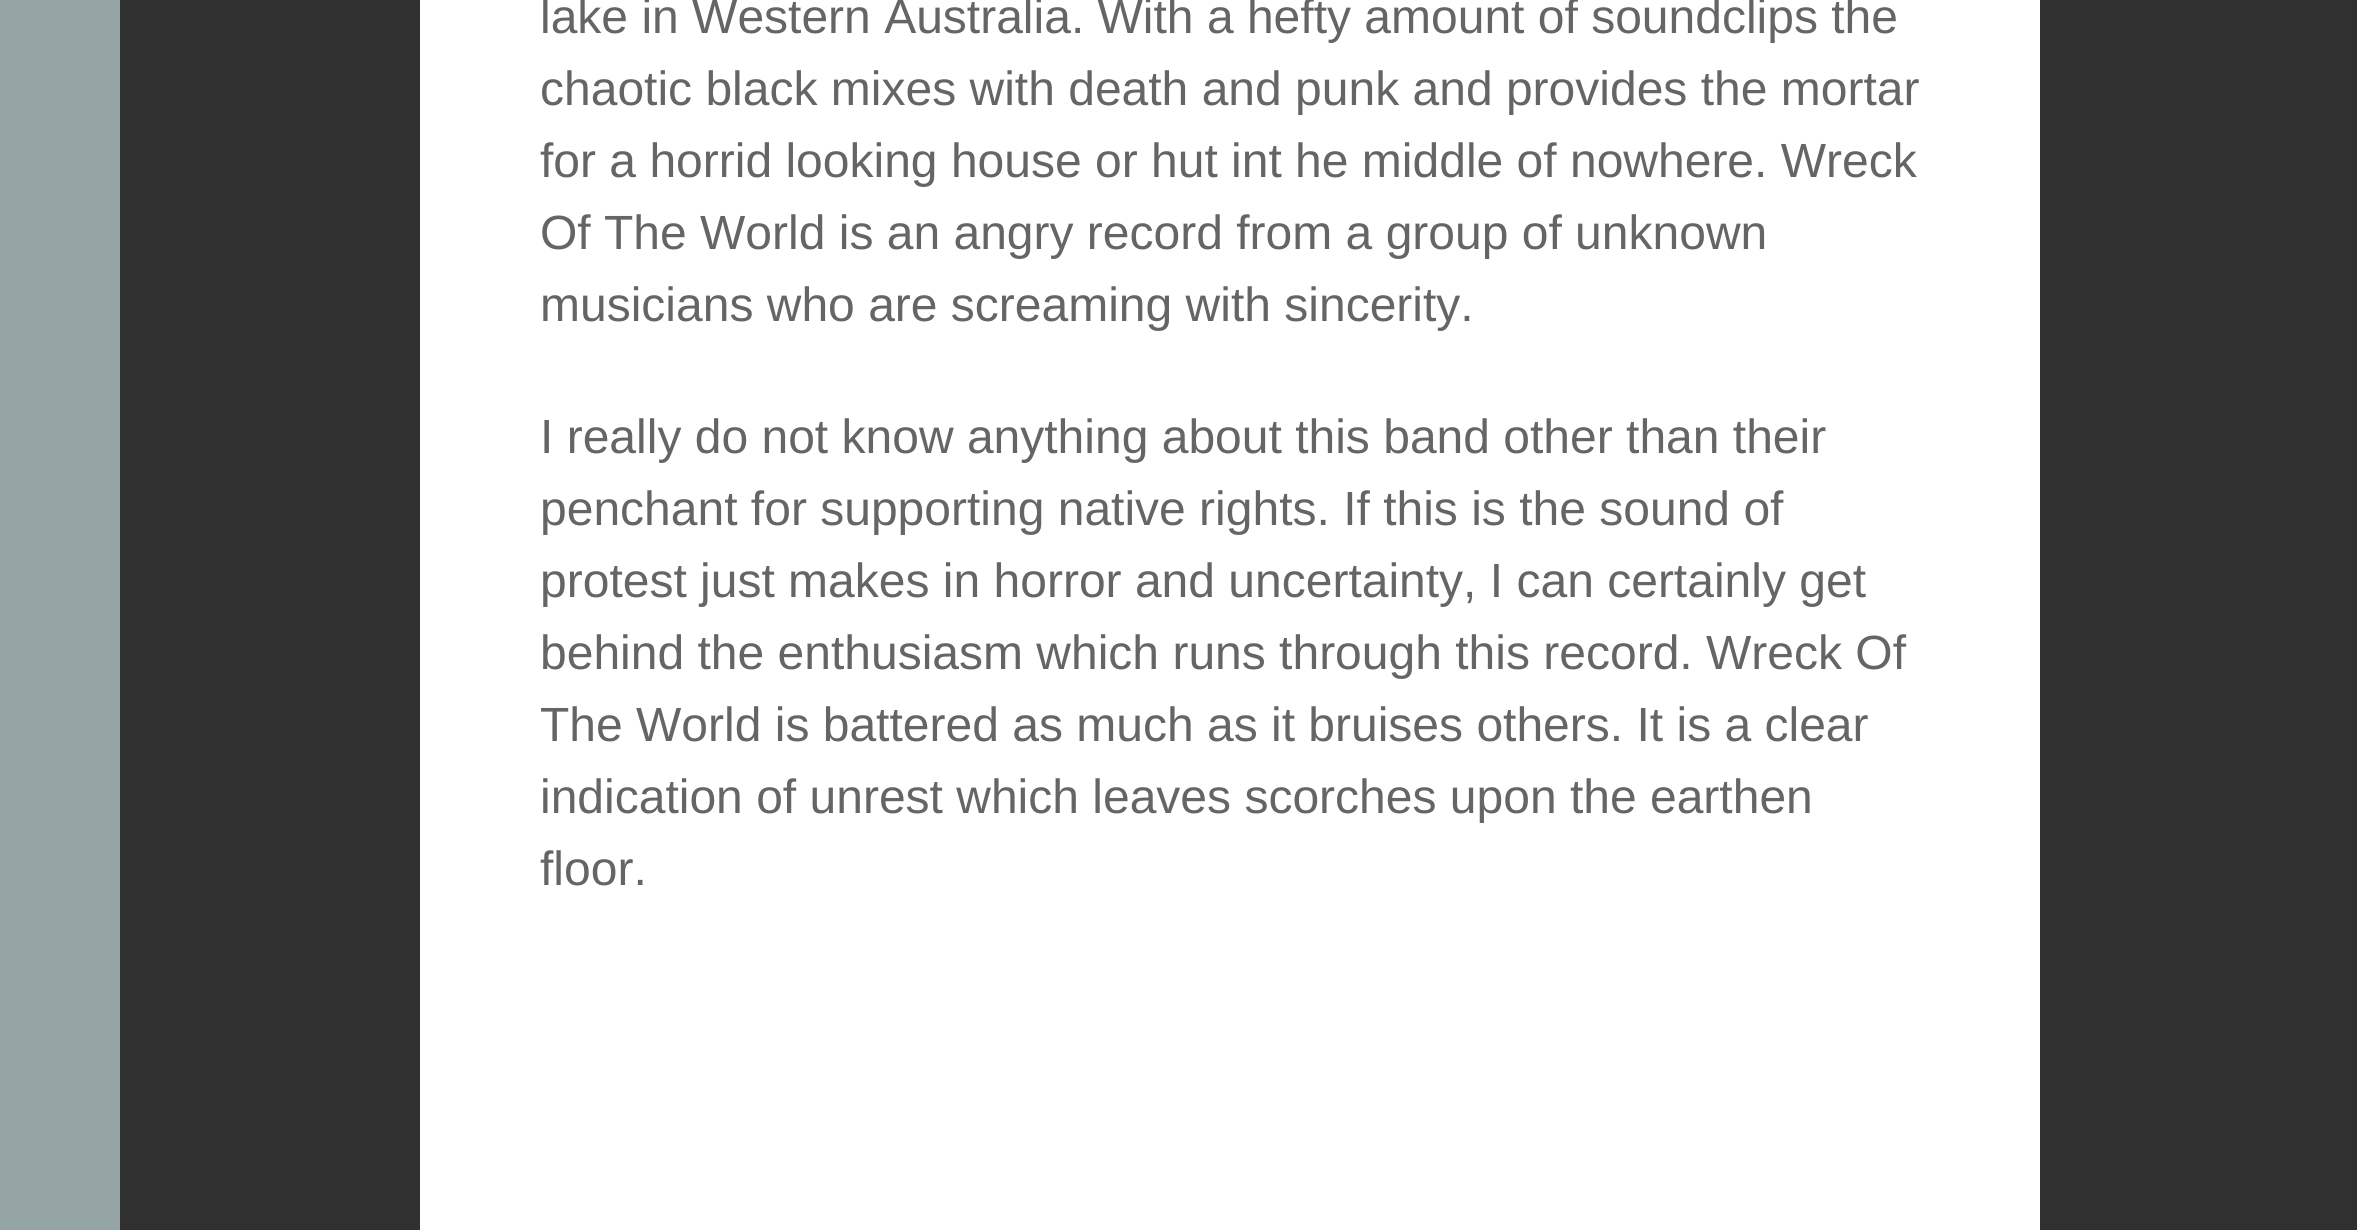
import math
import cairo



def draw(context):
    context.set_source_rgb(48 / 255, 48 / 255, 48 / 255)
    context.paint()
    context.set_source_rgb(149 / 255, 165 / 255, 166 / 255)
    context.rectangle(0, 0, 120, 1230)
    context.fill()
    context.set_source_rgb(1, 1, 1)
    context.rectangle(420, 0, 1620, 1230)
    context.fill()
    context.select_font_face("Liberation Sans")
    context.set_font_size(48)
    context.set_source_rgb(101 / 255, 101 / 255, 101 / 255)
    context.move_to(540, 33)
    context.show_text("lake in Western Australia. With a hefty amount of soundclips the")
    context.move_to(540, 105)
    context.show_text("chaotic black mixes with death and punk and provides the mortar")
    context.move_to(540, 177)
    context.show_text("for a horrid looking house or hut int he middle of nowhere. Wreck")
    context.move_to(540, 249)
    context.show_text("Of The World is an angry record from a group of unknown")
    context.move_to(540, 321)
    context.show_text("musicians who are screaming with sincerity.")
    context.move_to(540, 453)
    context.show_text("I really do not know anything about this band other than their")
    context.move_to(540, 525)
    context.show_text("penchant for supporting native rights. If this is the sound of")
    context.move_to(540, 597)
    context.show_text("protest just makes in horror and uncertainty, I can certainly get")
    context.move_to(540, 669)
    context.show_text("behind the enthusiasm which runs through this record. Wreck Of")
    context.move_to(540, 741)
    context.show_text("The World is battered as much as it bruises others. It is a clear")
    context.move_to(540, 813)
    context.show_text("indication of unrest which leaves scorches upon the earthen")
    context.move_to(540, 885)
    context.show_text("floor.")


surface = cairo.ImageSurface(cairo.Format.RGB24, 2357, 1230)
context = cairo.Context(surface)
options = cairo.FontOptions()
options.set_hint_metrics(cairo.HintMetrics.OFF)
options.set_hint_style(cairo.HintStyle.NONE)
context.set_font_options(options)
context.set_miter_limit(4)
draw(context)
surface.write_to_png("out.png")
